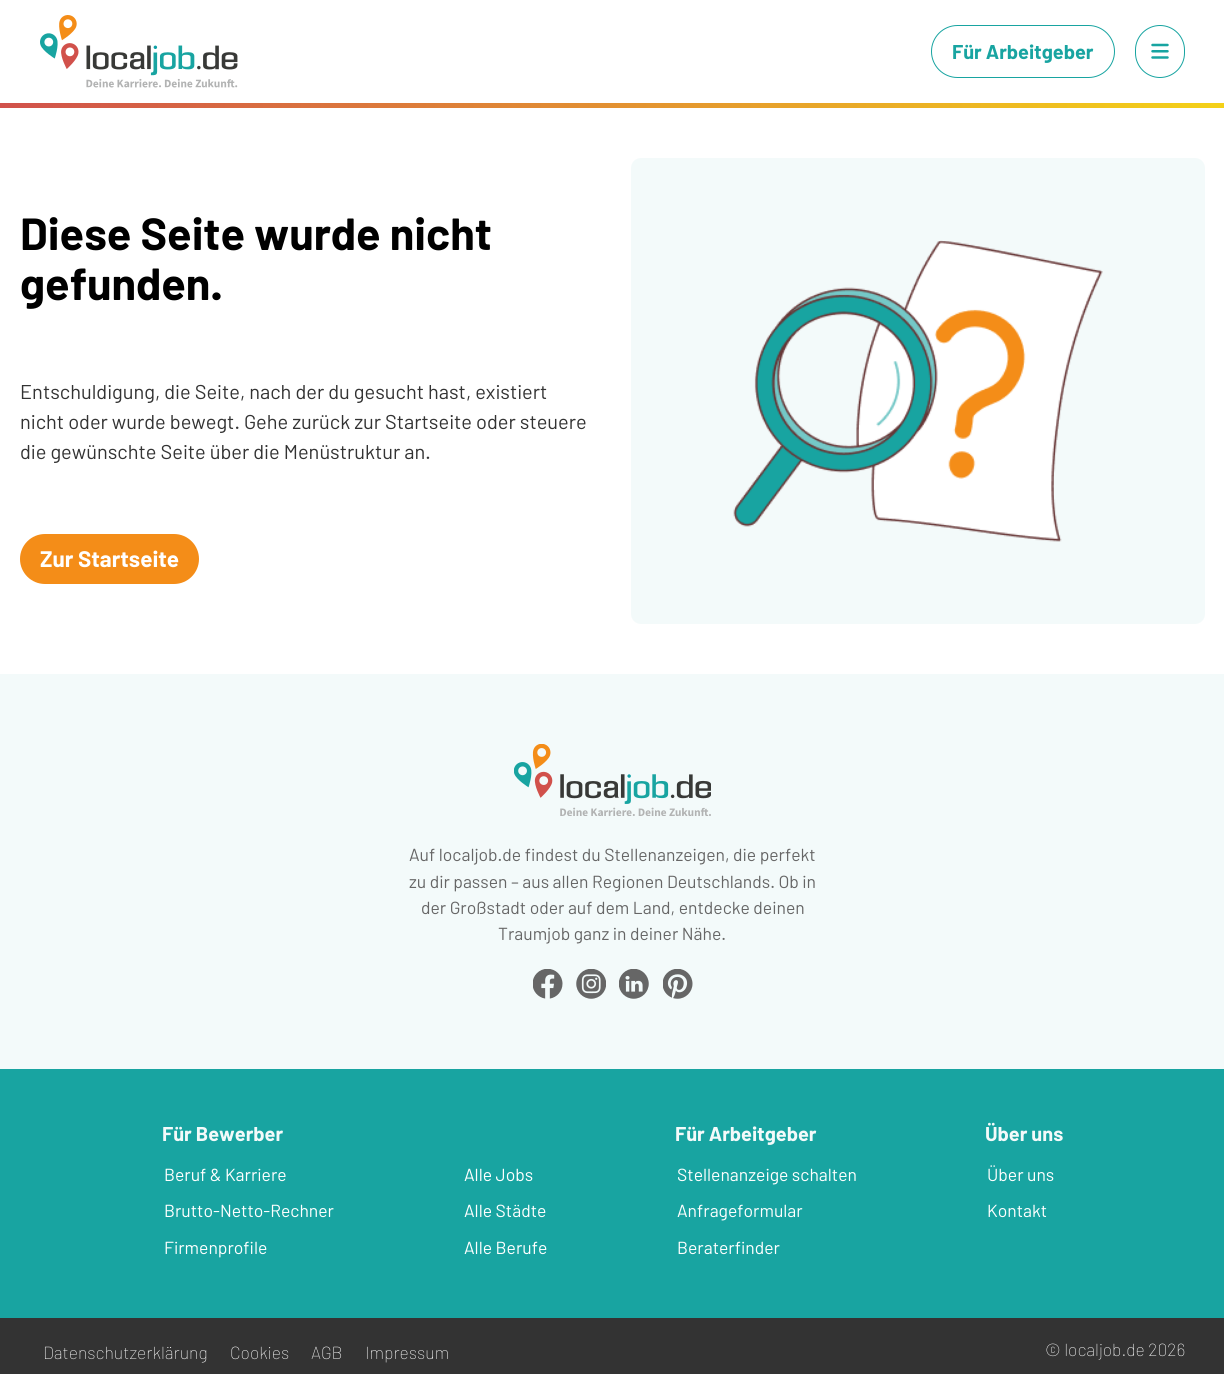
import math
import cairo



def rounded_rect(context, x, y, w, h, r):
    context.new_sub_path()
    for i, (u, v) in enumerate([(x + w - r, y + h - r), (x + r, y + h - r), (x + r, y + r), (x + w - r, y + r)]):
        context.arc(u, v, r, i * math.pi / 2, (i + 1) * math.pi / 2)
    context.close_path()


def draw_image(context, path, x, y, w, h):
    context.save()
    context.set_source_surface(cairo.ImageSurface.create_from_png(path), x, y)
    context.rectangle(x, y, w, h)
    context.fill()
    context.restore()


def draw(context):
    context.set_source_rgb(1, 1, 1)
    context.paint()
    draw_image(context, "images/1.png", 40, 15, 198, 73)
    rounded_rect(context, 931.5, 25.5, 183, 52, 26)
    context.set_source_rgb(24 / 255, 164 / 255, 161 / 255)
    context.set_line_width(1)
    context.stroke()
    rounded_rect(context, 1135.5, 25.5, 49, 52, 24.5)
    context.stroke()
    draw_image(context, "images/2.png", 1151, 43, 18, 16)
    gradient = cairo.LinearGradient(0, 105, 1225, 105)
    gradient.add_color_stop_rgba(0, 209 / 255, 81 / 255, 75 / 255, 1)
    gradient.add_color_stop_rgba(1, 244 / 255, 209 / 255, 24 / 255, 1)
    context.set_source(gradient)
    context.rectangle(0, 103, 1224, 5)
    context.fill()
    context.set_source_rgb(244 / 255, 141 / 255, 24 / 255)
    rounded_rect(context, 20, 534, 179, 50, 25)
    context.fill()
    context.set_source_rgb(243 / 255, 250 / 255, 250 / 255)
    rounded_rect(context, 631, 158, 574, 466, 10)
    context.fill()
    draw_image(context, "images/3.png", 733, 240, 370, 302)
    context.rectangle(0, 674, 1224, 395)
    context.fill()
    draw_image(context, "images/4.png", 514, 744, 197, 72)
    draw_image(context, "images/5.png", 533, 969, 30, 30)
    draw_image(context, "images/6.png", 576, 969, 30, 30)
    draw_image(context, "images/7.png", 619, 969, 30, 30)
    draw_image(context, "images/8.png", 663, 969, 30, 30)
    context.set_source_rgb(24 / 255, 164 / 255, 161 / 255)
    context.rectangle(0, 1069, 1224, 249)
    context.fill()
    context.set_source_rgb(51 / 255, 51 / 255, 51 / 255)
    context.rectangle(0, 1318, 1224, 56)
    context.fill()
    context.select_font_face("Barlow", cairo.FontSlant.NORMAL, cairo.FontWeight.BOLD)
    context.set_font_size(20)
    context.set_source_rgb(24 / 255, 164 / 255, 161 / 255)
    context.move_to(952, 59)
    context.show_text("Für Arbeitgeber")
    context.set_font_size(45)
    context.set_source_rgb(0, 0, 0)
    context.move_to(20, 250)
    context.show_text("Diese Seite wurde nicht")
    context.move_to(20, 300)
    context.show_text("gefunden.")
    context.select_font_face("Barlow")
    context.set_font_size(20)
    context.set_source_rgb(51 / 255, 51 / 255, 51 / 255)
    context.move_to(20, 399)
    context.show_text("Entschuldigung, die Seite, nach der du gesucht hast, existiert")
    context.move_to(20, 429)
    context.show_text("nicht oder wurde bewegt. Gehe zurück zur Startseite oder steuere")
    context.move_to(20, 459)
    context.show_text("die gewünschte Seite über die Menüstruktur an.")
    context.select_font_face("Barlow", cairo.FontSlant.NORMAL, cairo.FontWeight.BOLD)
    context.set_font_size(22.5)
    context.set_source_rgb(1, 1, 1)
    context.move_to(40, 567)
    context.show_text("Zur Startseite")
    context.select_font_face("Barlow")
    context.set_font_size(17.5)
    context.set_source_rgb(102 / 255, 102 / 255, 102 / 255)
    context.move_to(409, 861)
    context.show_text("Auf localjob.de findest du Stellenanzeigen, die perfekt")
    context.move_to(409, 888)
    context.show_text("zu dir passen – aus allen Regionen Deutschlands. Ob in")
    context.move_to(421, 914)
    context.show_text("der Großstadt oder auf dem Land, entdecke deinen")
    context.move_to(498, 940)
    context.show_text("Traumjob ganz in deiner Nähe.")
    context.select_font_face("Barlow", cairo.FontSlant.NORMAL, cairo.FontWeight.BOLD)
    context.set_font_size(20)
    context.set_source_rgb(243 / 255, 250 / 255, 250 / 255)
    context.move_to(162, 1141)
    context.show_text("Für Bewerber")
    context.select_font_face("Barlow")
    context.set_font_size(17.5)
    context.set_source_rgb(1, 1, 1)
    context.move_to(164, 1181)
    context.show_text("Beruf & Karriere")
    context.move_to(164, 1217)
    context.show_text("Brutto-Netto-Rechner")
    context.move_to(164, 1254)
    context.show_text("Firmenprofile")
    context.move_to(464, 1181)
    context.show_text("Alle Jobs")
    context.move_to(464, 1217)
    context.show_text("Alle Städte")
    context.move_to(464, 1254)
    context.show_text("Alle Berufe")
    context.select_font_face("Barlow", cairo.FontSlant.NORMAL, cairo.FontWeight.BOLD)
    context.set_font_size(20)
    context.set_source_rgb(243 / 255, 250 / 255, 250 / 255)
    context.move_to(675, 1141)
    context.show_text("Für Arbeitgeber")
    context.select_font_face("Barlow")
    context.set_font_size(17.5)
    context.set_source_rgb(1, 1, 1)
    context.move_to(677, 1181)
    context.show_text("Stellenanzeige schalten")
    context.move_to(677, 1217)
    context.show_text("Anfrageformular")
    context.move_to(677, 1254)
    context.show_text("Beraterfinder")
    context.select_font_face("Barlow", cairo.FontSlant.NORMAL, cairo.FontWeight.BOLD)
    context.set_font_size(20)
    context.set_source_rgb(243 / 255, 250 / 255, 250 / 255)
    context.move_to(985, 1141)
    context.show_text("Über uns")
    context.select_font_face("Barlow")
    context.set_font_size(17.5)
    context.set_source_rgb(1, 1, 1)
    context.move_to(987, 1181)
    context.show_text("Über uns")
    context.move_to(987, 1217)
    context.show_text("Kontakt")
    context.select_font_face("Barlow Thin")
    context.move_to(43, 1359)
    context.show_text("Datenschutzerklärung")
    context.move_to(230, 1359)
    context.show_text("Cookies")
    context.move_to(311, 1359)
    context.show_text("AGB")
    context.move_to(365, 1359)
    context.show_text("Impressum")
    context.move_to(1045, 1356)
    context.show_text("© localjob.de 2026")


surface = cairo.ImageSurface(cairo.Format.RGB24, 1224, 1374)
context = cairo.Context(surface)
options = cairo.FontOptions()
options.set_hint_metrics(cairo.HintMetrics.OFF)
options.set_hint_style(cairo.HintStyle.NONE)
context.set_font_options(options)
context.set_miter_limit(4)
draw(context)
surface.write_to_png("out.png")
